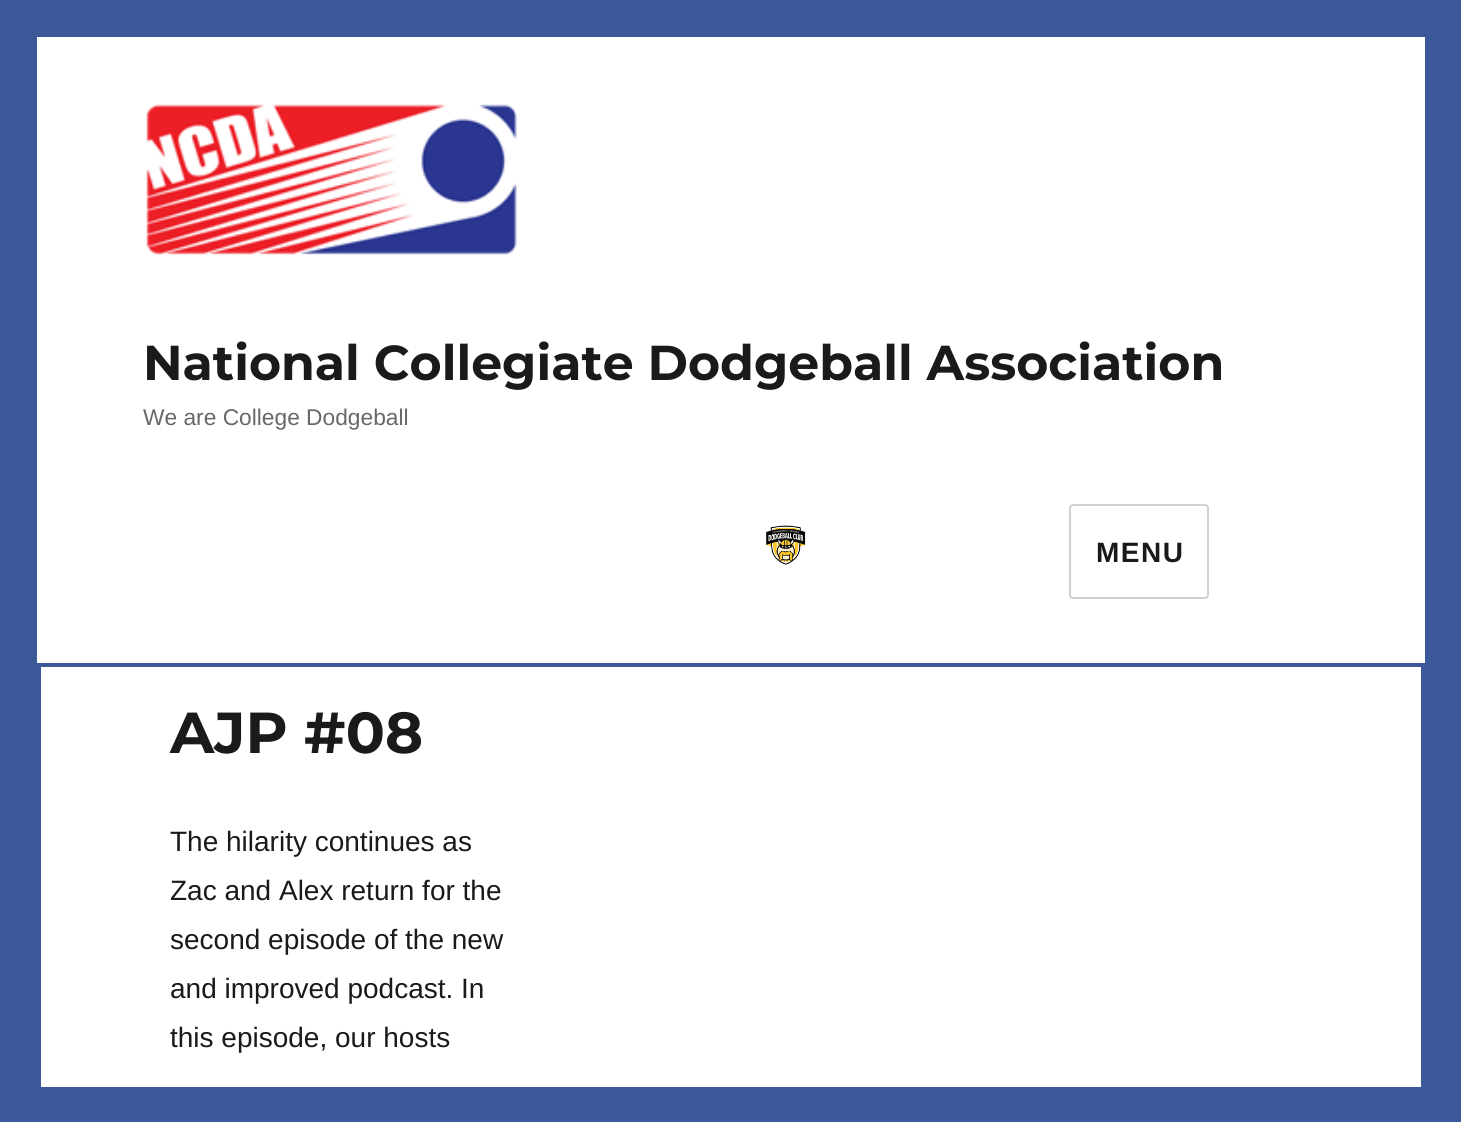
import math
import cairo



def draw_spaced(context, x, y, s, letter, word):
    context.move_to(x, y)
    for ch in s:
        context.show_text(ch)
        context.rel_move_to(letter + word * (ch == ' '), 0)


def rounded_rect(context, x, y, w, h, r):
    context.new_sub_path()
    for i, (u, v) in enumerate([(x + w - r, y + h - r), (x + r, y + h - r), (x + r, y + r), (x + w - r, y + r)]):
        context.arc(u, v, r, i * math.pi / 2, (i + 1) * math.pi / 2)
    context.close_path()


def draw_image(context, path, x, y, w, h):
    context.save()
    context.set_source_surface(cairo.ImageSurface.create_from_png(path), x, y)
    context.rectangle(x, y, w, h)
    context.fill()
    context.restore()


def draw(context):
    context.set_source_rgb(59 / 255, 89 / 255, 152 / 255)
    context.paint()
    context.set_source_rgb(1, 1, 1)
    context.rectangle(37, 37, 1388, 626)
    context.fill()
    draw_image(context, "images/1.png", 146, 104, 371, 151)
    draw_image(context, "images/2.png", 766, 525, 40, 40)
    rounded_rect(context, 1070, 505, 138, 93, 3)
    context.set_source_rgb(209 / 255, 209 / 255, 209 / 255)
    context.stroke()
    context.set_source_rgb(1, 1, 1)
    context.rectangle(41, 667, 1380, 420)
    context.fill()
    context.select_font_face("Montserrat Thin")
    context.set_font_size(49)
    context.set_source_rgb(26 / 255, 26 / 255, 26 / 255)
    context.move_to(143, 380)
    context.show_text("National Collegiate Dodgeball Association")
    context.select_font_face("Liberation Sans")
    context.set_font_size(22.75)
    context.set_source_rgb(104 / 255, 104 / 255, 104 / 255)
    context.move_to(143, 425)
    context.show_text("We are College Dodgeball")
    context.select_font_face("Liberation Sans", cairo.FontSlant.NORMAL, cairo.FontWeight.BOLD)
    context.set_font_size(28)
    context.set_source_rgb(26 / 255, 26 / 255, 26 / 255)
    draw_spaced(context, 1096, 562, "MENU", 1.5, 0)
    context.select_font_face("Montserrat Thin")
    context.set_font_size(57.75)
    context.move_to(170, 753)
    context.show_text("AJP #08")
    context.select_font_face("Liberation Sans")
    context.set_font_size(28)
    context.move_to(170, 851)
    context.show_text("The hilarity continues as")
    context.move_to(170, 900)
    context.show_text("Zac and Alex return for the")
    context.move_to(170, 949)
    context.show_text("second episode of the new")
    context.move_to(170, 998)
    context.show_text("and improved podcast. In")
    context.move_to(170, 1047)
    context.show_text("this episode, our hosts")


surface = cairo.ImageSurface(cairo.Format.RGB24, 1461, 1122)
context = cairo.Context(surface)
options = cairo.FontOptions()
options.set_hint_metrics(cairo.HintMetrics.OFF)
options.set_hint_style(cairo.HintStyle.NONE)
context.set_font_options(options)
context.set_miter_limit(4)
draw(context)
surface.write_to_png("out.png")
